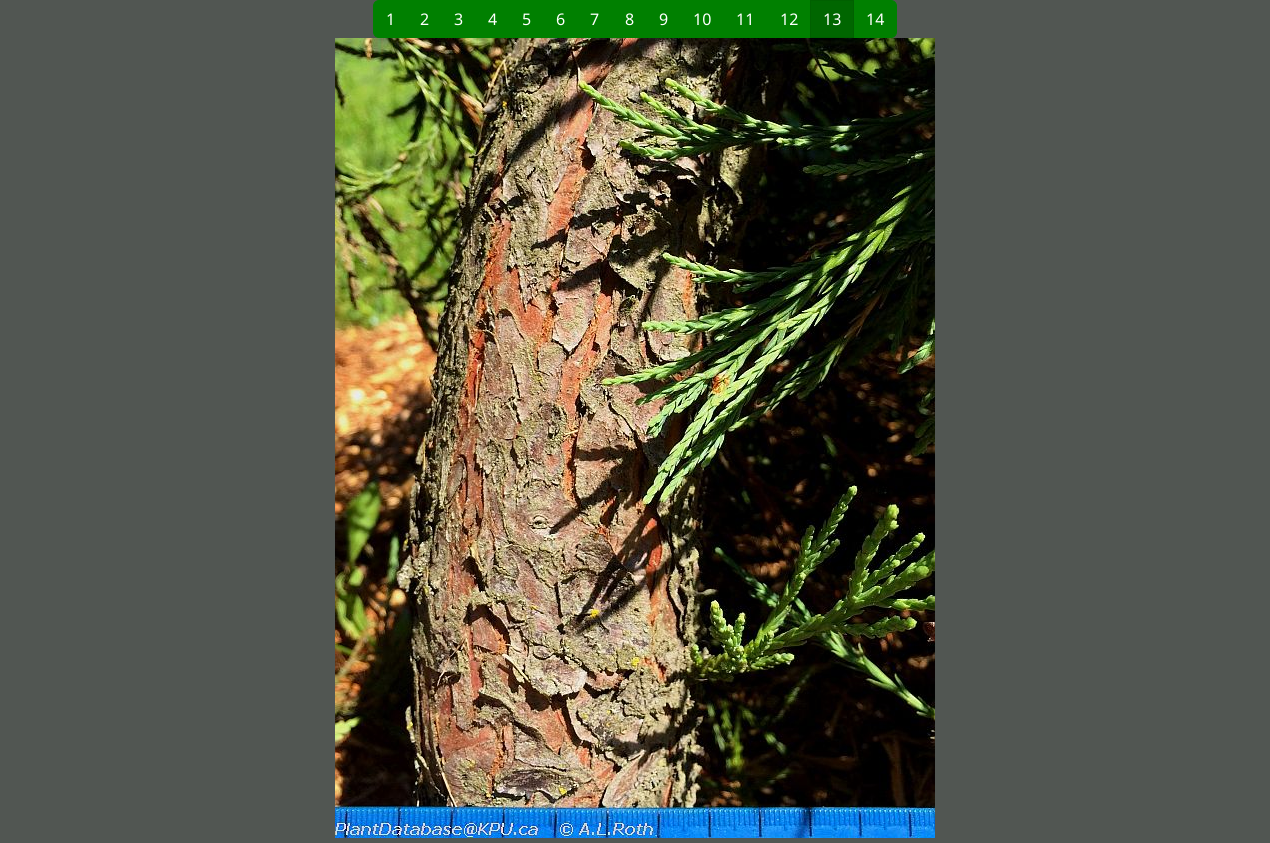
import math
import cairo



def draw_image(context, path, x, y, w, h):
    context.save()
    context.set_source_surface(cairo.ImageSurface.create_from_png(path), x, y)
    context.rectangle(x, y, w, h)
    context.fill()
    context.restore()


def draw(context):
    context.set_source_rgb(81 / 255, 86 / 255, 82 / 255)
    context.paint()
    context.set_source_rgb(0, 128 / 255, 0)
    context.new_path()
    context.move_to(379, 0.5)
    context.line_to(407.5, 0.5)
    context.line_to(407.5, 37.5)
    context.line_to(379, 37.5)
    context.curve_to(376, 37.5, 373.5, 35, 373.5, 32)
    context.line_to(373.5, 6)
    context.curve_to(373.5, 3, 376, 0.5, 379, 0.5)
    context.close_path()
    context.fill_preserve()
    context.set_line_width(1)
    context.stroke()
    context.rectangle(408, 0, 402, 38)
    context.fill()
    context.new_path()
    context.move_to(853.5, 0.5)
    context.line_to(891, 0.5)
    context.curve_to(894, 0.5, 896.5, 3, 896.5, 6)
    context.line_to(896.5, 32)
    context.curve_to(896.5, 35, 894, 37.5, 891, 37.5)
    context.line_to(853.5, 37.5)
    context.close_path()
    context.fill_preserve()
    context.stroke()
    context.set_source_rgb(0, 102 / 255, 0)
    context.rectangle(810.5, 0.5, 43, 37)
    context.fill_preserve()
    context.set_source_rgb(0, 96 / 255, 0)
    context.stroke()
    draw_image(context, "images/1.png", 335, 38, 600, 800)
    context.select_font_face("Noto Sans")
    context.set_font_size(16)
    context.set_source_rgb(1, 1, 1)
    context.move_to(386, 25)
    context.show_text("1")
    context.move_to(420, 25)
    context.show_text("2")
    context.move_to(454, 25)
    context.show_text("3")
    context.move_to(488, 25)
    context.show_text("4")
    context.move_to(522, 25)
    context.show_text("5")
    context.move_to(556, 25)
    context.show_text("6")
    context.move_to(590, 25)
    context.show_text("7")
    context.move_to(625, 25)
    context.show_text("8")
    context.move_to(659, 25)
    context.show_text("9")
    context.move_to(693, 25)
    context.show_text("10")
    context.move_to(736, 25)
    context.show_text("11")
    context.move_to(780, 25)
    context.show_text("12")
    context.move_to(823, 25)
    context.show_text("13")
    context.move_to(866, 25)
    context.show_text("14")


surface = cairo.ImageSurface(cairo.Format.RGB24, 1270, 843)
context = cairo.Context(surface)
options = cairo.FontOptions()
options.set_hint_metrics(cairo.HintMetrics.OFF)
options.set_hint_style(cairo.HintStyle.NONE)
context.set_font_options(options)
context.set_miter_limit(4)
draw(context)
surface.write_to_png("out.png")
